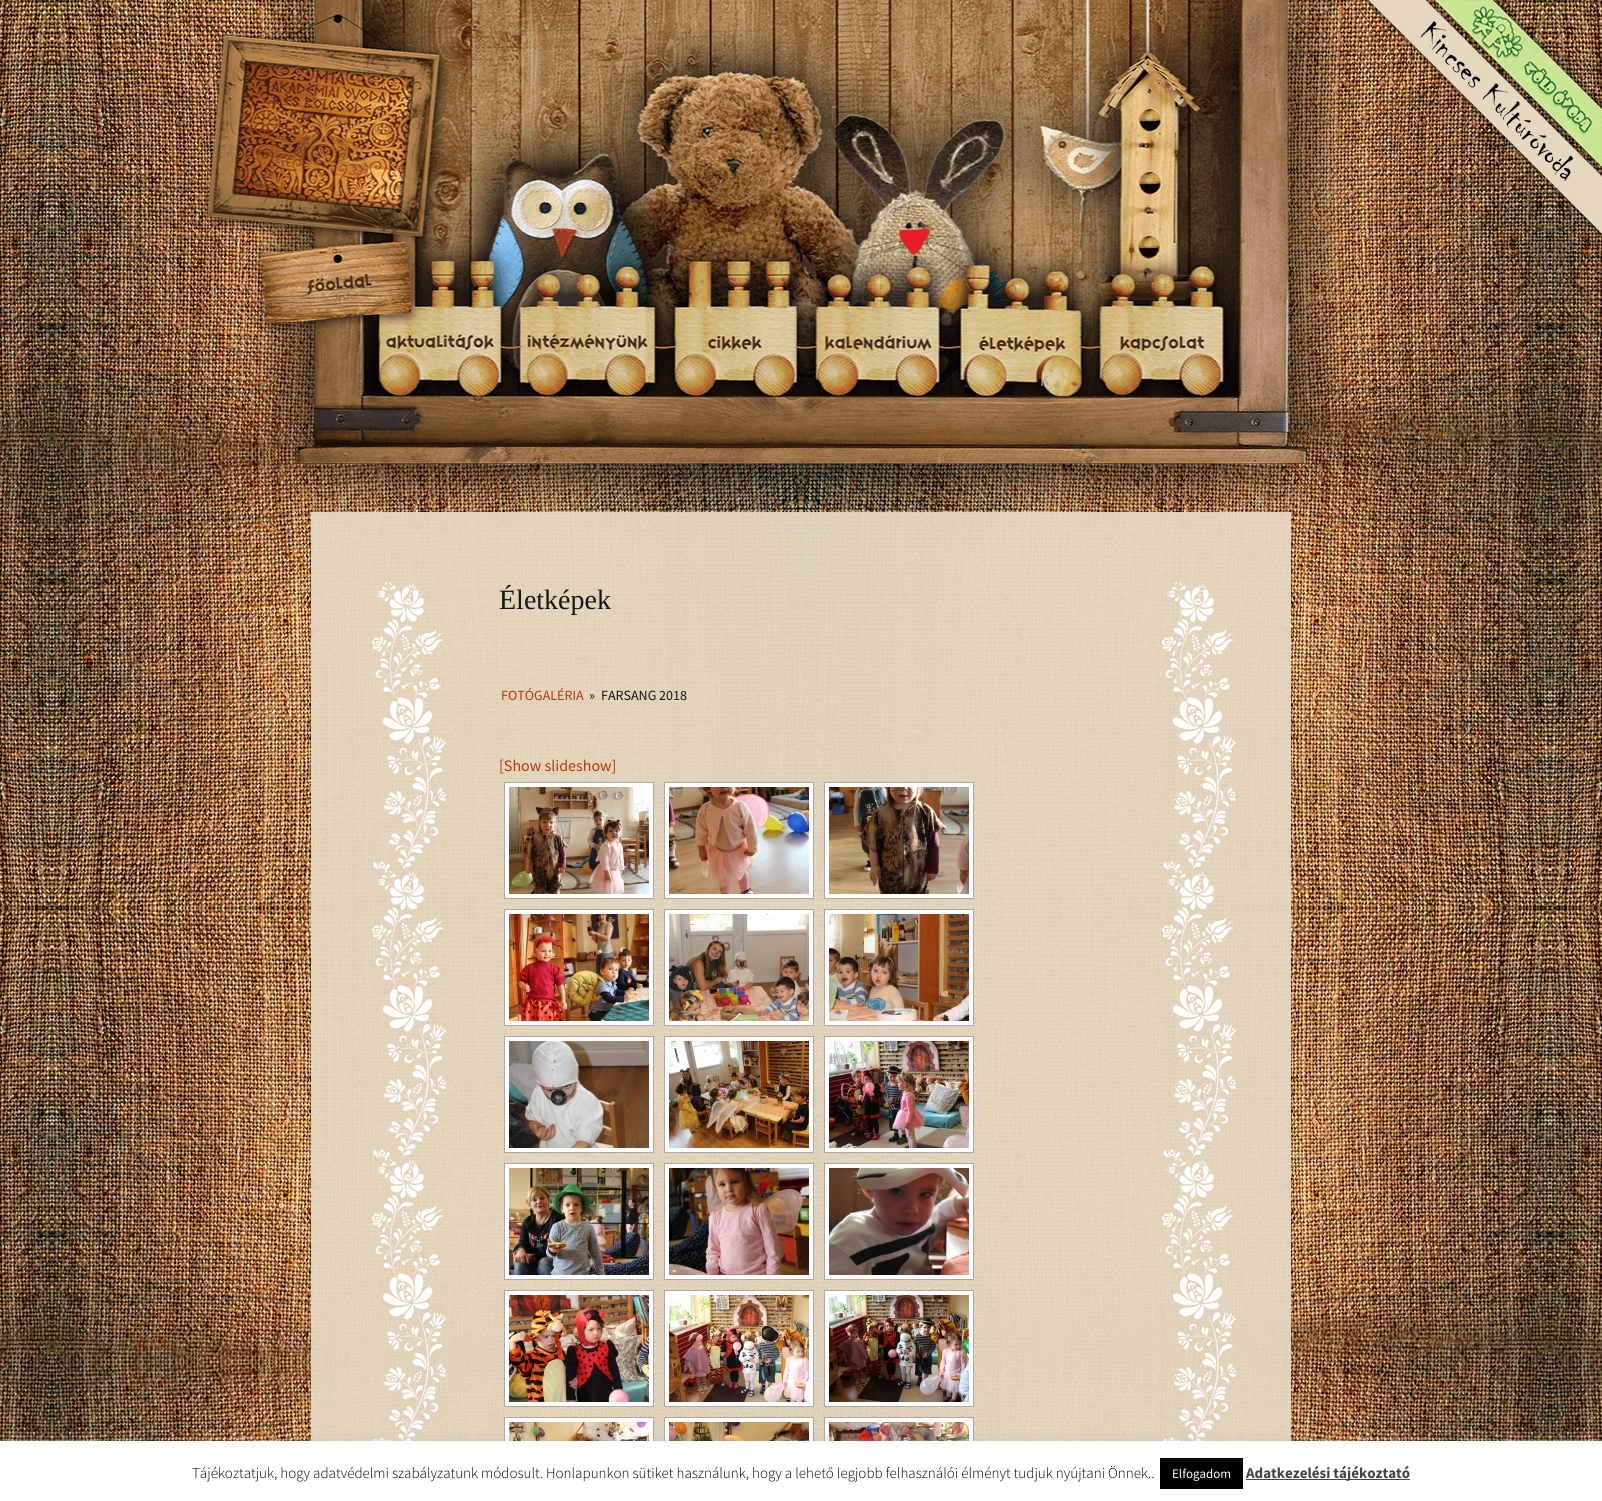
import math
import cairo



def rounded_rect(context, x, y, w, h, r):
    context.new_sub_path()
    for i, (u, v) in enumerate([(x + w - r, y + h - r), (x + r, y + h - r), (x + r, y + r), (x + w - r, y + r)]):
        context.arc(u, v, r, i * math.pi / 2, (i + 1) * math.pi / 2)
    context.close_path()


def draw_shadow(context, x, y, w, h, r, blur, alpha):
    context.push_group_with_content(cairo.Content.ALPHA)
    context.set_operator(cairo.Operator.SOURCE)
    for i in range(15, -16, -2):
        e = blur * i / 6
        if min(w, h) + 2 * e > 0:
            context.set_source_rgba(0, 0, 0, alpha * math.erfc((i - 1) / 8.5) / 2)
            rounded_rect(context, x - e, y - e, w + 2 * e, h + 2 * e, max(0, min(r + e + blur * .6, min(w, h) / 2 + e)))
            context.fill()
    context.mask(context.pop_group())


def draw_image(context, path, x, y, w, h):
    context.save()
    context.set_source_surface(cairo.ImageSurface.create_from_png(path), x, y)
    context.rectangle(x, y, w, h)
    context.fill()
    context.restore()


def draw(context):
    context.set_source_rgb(1, 1, 1)
    context.paint()
    draw_image(context, "images/1.png", 0, 0, 1602, 1441)
    draw_image(context, "images/2.png", 1363, 0, 239, 239)
    draw_image(context, "images/3.png", 201, 0, 1157, 525)
    context.set_source_rgba(229 / 255, 215 / 255, 192 / 255, 0.95)
    context.rectangle(311, 512, 980, 929)
    context.fill()
    draw_image(context, "images/4.png", 372, 582, 865, 859)
    context.set_source_rgb(1, 1, 1)
    context.rectangle(504.5, 782.5, 149, 116)
    context.fill_preserve()
    context.set_source_rgb(169 / 255, 169 / 255, 169 / 255)
    context.set_line_width(1)
    context.stroke()
    draw_image(context, "images/5.png", 509, 787, 140, 107)
    context.set_source_rgb(1, 1, 1)
    context.rectangle(664.5, 782.5, 149, 116)
    context.fill_preserve()
    context.set_source_rgb(169 / 255, 169 / 255, 169 / 255)
    context.stroke()
    draw_image(context, "images/6.png", 669, 787, 140, 107)
    context.set_source_rgb(1, 1, 1)
    context.rectangle(824.5, 782.5, 149, 116)
    context.fill_preserve()
    context.set_source_rgb(169 / 255, 169 / 255, 169 / 255)
    context.stroke()
    draw_image(context, "images/7.png", 829, 787, 140, 107)
    context.set_source_rgb(1, 1, 1)
    context.rectangle(504.5, 909.5, 149, 116)
    context.fill_preserve()
    context.set_source_rgb(169 / 255, 169 / 255, 169 / 255)
    context.stroke()
    draw_image(context, "images/8.png", 509, 914, 140, 107)
    context.set_source_rgb(1, 1, 1)
    context.rectangle(664.5, 909.5, 149, 116)
    context.fill_preserve()
    context.set_source_rgb(169 / 255, 169 / 255, 169 / 255)
    context.stroke()
    draw_image(context, "images/9.png", 669, 914, 140, 107)
    context.set_source_rgb(1, 1, 1)
    context.rectangle(824.5, 909.5, 149, 116)
    context.fill_preserve()
    context.set_source_rgb(169 / 255, 169 / 255, 169 / 255)
    context.stroke()
    draw_image(context, "images/10.png", 829, 914, 140, 107)
    context.set_source_rgb(1, 1, 1)
    context.rectangle(504.5, 1036.5, 149, 116)
    context.fill_preserve()
    context.set_source_rgb(169 / 255, 169 / 255, 169 / 255)
    context.stroke()
    draw_image(context, "images/11.png", 509, 1041, 140, 107)
    context.set_source_rgb(1, 1, 1)
    context.rectangle(664.5, 1036.5, 149, 116)
    context.fill_preserve()
    context.set_source_rgb(169 / 255, 169 / 255, 169 / 255)
    context.stroke()
    draw_image(context, "images/12.png", 669, 1041, 140, 107)
    context.set_source_rgb(1, 1, 1)
    context.rectangle(824.5, 1036.5, 149, 116)
    context.fill_preserve()
    context.set_source_rgb(169 / 255, 169 / 255, 169 / 255)
    context.stroke()
    draw_image(context, "images/13.png", 829, 1041, 140, 107)
    context.set_source_rgb(1, 1, 1)
    context.rectangle(504.5, 1163.5, 149, 116)
    context.fill_preserve()
    context.set_source_rgb(169 / 255, 169 / 255, 169 / 255)
    context.stroke()
    draw_image(context, "images/14.png", 509, 1168, 140, 107)
    context.set_source_rgb(1, 1, 1)
    context.rectangle(664.5, 1163.5, 149, 116)
    context.fill_preserve()
    context.set_source_rgb(169 / 255, 169 / 255, 169 / 255)
    context.stroke()
    draw_image(context, "images/15.png", 669, 1168, 140, 107)
    context.set_source_rgb(1, 1, 1)
    context.rectangle(824.5, 1163.5, 149, 116)
    context.fill_preserve()
    context.set_source_rgb(169 / 255, 169 / 255, 169 / 255)
    context.stroke()
    draw_image(context, "images/16.png", 829, 1168, 140, 107)
    context.set_source_rgb(1, 1, 1)
    context.rectangle(504.5, 1290.5, 149, 116)
    context.fill_preserve()
    context.set_source_rgb(169 / 255, 169 / 255, 169 / 255)
    context.stroke()
    draw_image(context, "images/17.png", 509, 1295, 140, 107)
    context.set_source_rgb(1, 1, 1)
    context.rectangle(664.5, 1290.5, 149, 116)
    context.fill_preserve()
    context.set_source_rgb(169 / 255, 169 / 255, 169 / 255)
    context.stroke()
    draw_image(context, "images/18.png", 669, 1295, 140, 107)
    context.set_source_rgb(1, 1, 1)
    context.rectangle(824.5, 1290.5, 149, 116)
    context.fill_preserve()
    context.set_source_rgb(169 / 255, 169 / 255, 169 / 255)
    context.stroke()
    draw_image(context, "images/19.png", 829, 1295, 140, 107)
    context.set_source_rgb(1, 1, 1)
    context.rectangle(505, 1418, 148, 23)
    context.fill()
    context.rectangle(504.5, 1417.5, 149, 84)
    context.set_source_rgb(169 / 255, 169 / 255, 169 / 255)
    context.stroke()
    draw_image(context, "images/20.png", 509, 1422, 140, 19)
    context.set_source_rgb(1, 1, 1)
    context.rectangle(665, 1418, 148, 23)
    context.fill()
    context.rectangle(664.5, 1417.5, 149, 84)
    context.set_source_rgb(169 / 255, 169 / 255, 169 / 255)
    context.stroke()
    draw_image(context, "images/21.png", 669, 1422, 140, 19)
    context.set_source_rgb(1, 1, 1)
    context.rectangle(825, 1418, 148, 23)
    context.fill()
    context.rectangle(824.5, 1417.5, 149, 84)
    context.set_source_rgb(169 / 255, 169 / 255, 169 / 255)
    context.stroke()
    draw_image(context, "images/22.png", 829, 1422, 140, 19)
    context.set_source_rgb(172 / 255, 171 / 255, 171 / 255)
    draw_shadow(context, 0, 1440, 1602, 60, 0, 5, 0.3)
    context.set_source_rgb(1, 1, 1)
    context.rectangle(0, 1441, 1602, 60)
    context.fill()
    context.set_source_rgb(0, 0, 0)
    context.rectangle(1160, 1458, 83, 31)
    context.fill()
    context.set_source_rgb(68 / 255, 68 / 255, 68 / 255)
    context.rectangle(1246, 1479, 164, 1)
    context.fill()
    context.select_font_face("Source Sans Pro")
    context.set_font_size(16)
    context.set_source_rgb(191 / 255, 163 / 255, 110 / 255)
    context.move_to(1040, 386)
    context.show_text("K")
    context.select_font_face("Liberation Serif")
    context.set_font_size(28)
    context.set_source_rgb(20 / 255, 20 / 255, 18 / 255)
    context.move_to(499, 609)
    context.show_text("Életképek")
    context.select_font_face("Source Sans Pro")
    context.set_font_size(14)
    context.set_source_rgb(188 / 255, 54 / 255, 10 / 255)
    context.move_to(501, 700)
    context.show_text("FOTÓGALÉRIA")
    context.set_source_rgb(20 / 255, 20 / 255, 18 / 255)
    context.move_to(589, 700)
    context.show_text("»")
    context.move_to(601, 700)
    context.show_text("FARSANG 2018")
    context.set_font_size(16)
    context.set_source_rgb(188 / 255, 54 / 255, 10 / 255)
    context.move_to(499, 771)
    context.show_text("[Show slideshow]")
    context.select_font_face("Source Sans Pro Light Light")
    context.set_font_size(15)
    context.set_source_rgb(0, 0, 0)
    context.move_to(192, 1478)
    context.show_text("Tájékoztatjuk, hogy adatvédelmi szabályzatunk módosult. Honlapunkon sütiket használunk, hogy a lehető legjobb felhasználói élményt tudjuk nyújtani Önnek..")
    context.select_font_face("Source Sans Pro")
    context.set_font_size(13)
    context.set_source_rgb(1, 1, 1)
    context.move_to(1172, 1478)
    context.show_text("Elfogadom")
    context.select_font_face("Source Sans Pro", cairo.FontSlant.NORMAL, cairo.FontWeight.BOLD)
    context.set_font_size(15)
    context.set_source_rgb(68 / 255, 68 / 255, 68 / 255)
    context.move_to(1246, 1478)
    context.show_text("Adatkezelési tájékoztató")


surface = cairo.ImageSurface(cairo.Format.RGB24, 1602, 1501)
context = cairo.Context(surface)
options = cairo.FontOptions()
options.set_hint_metrics(cairo.HintMetrics.OFF)
options.set_hint_style(cairo.HintStyle.NONE)
context.set_font_options(options)
context.set_miter_limit(4)
draw(context)
surface.write_to_png("out.png")
